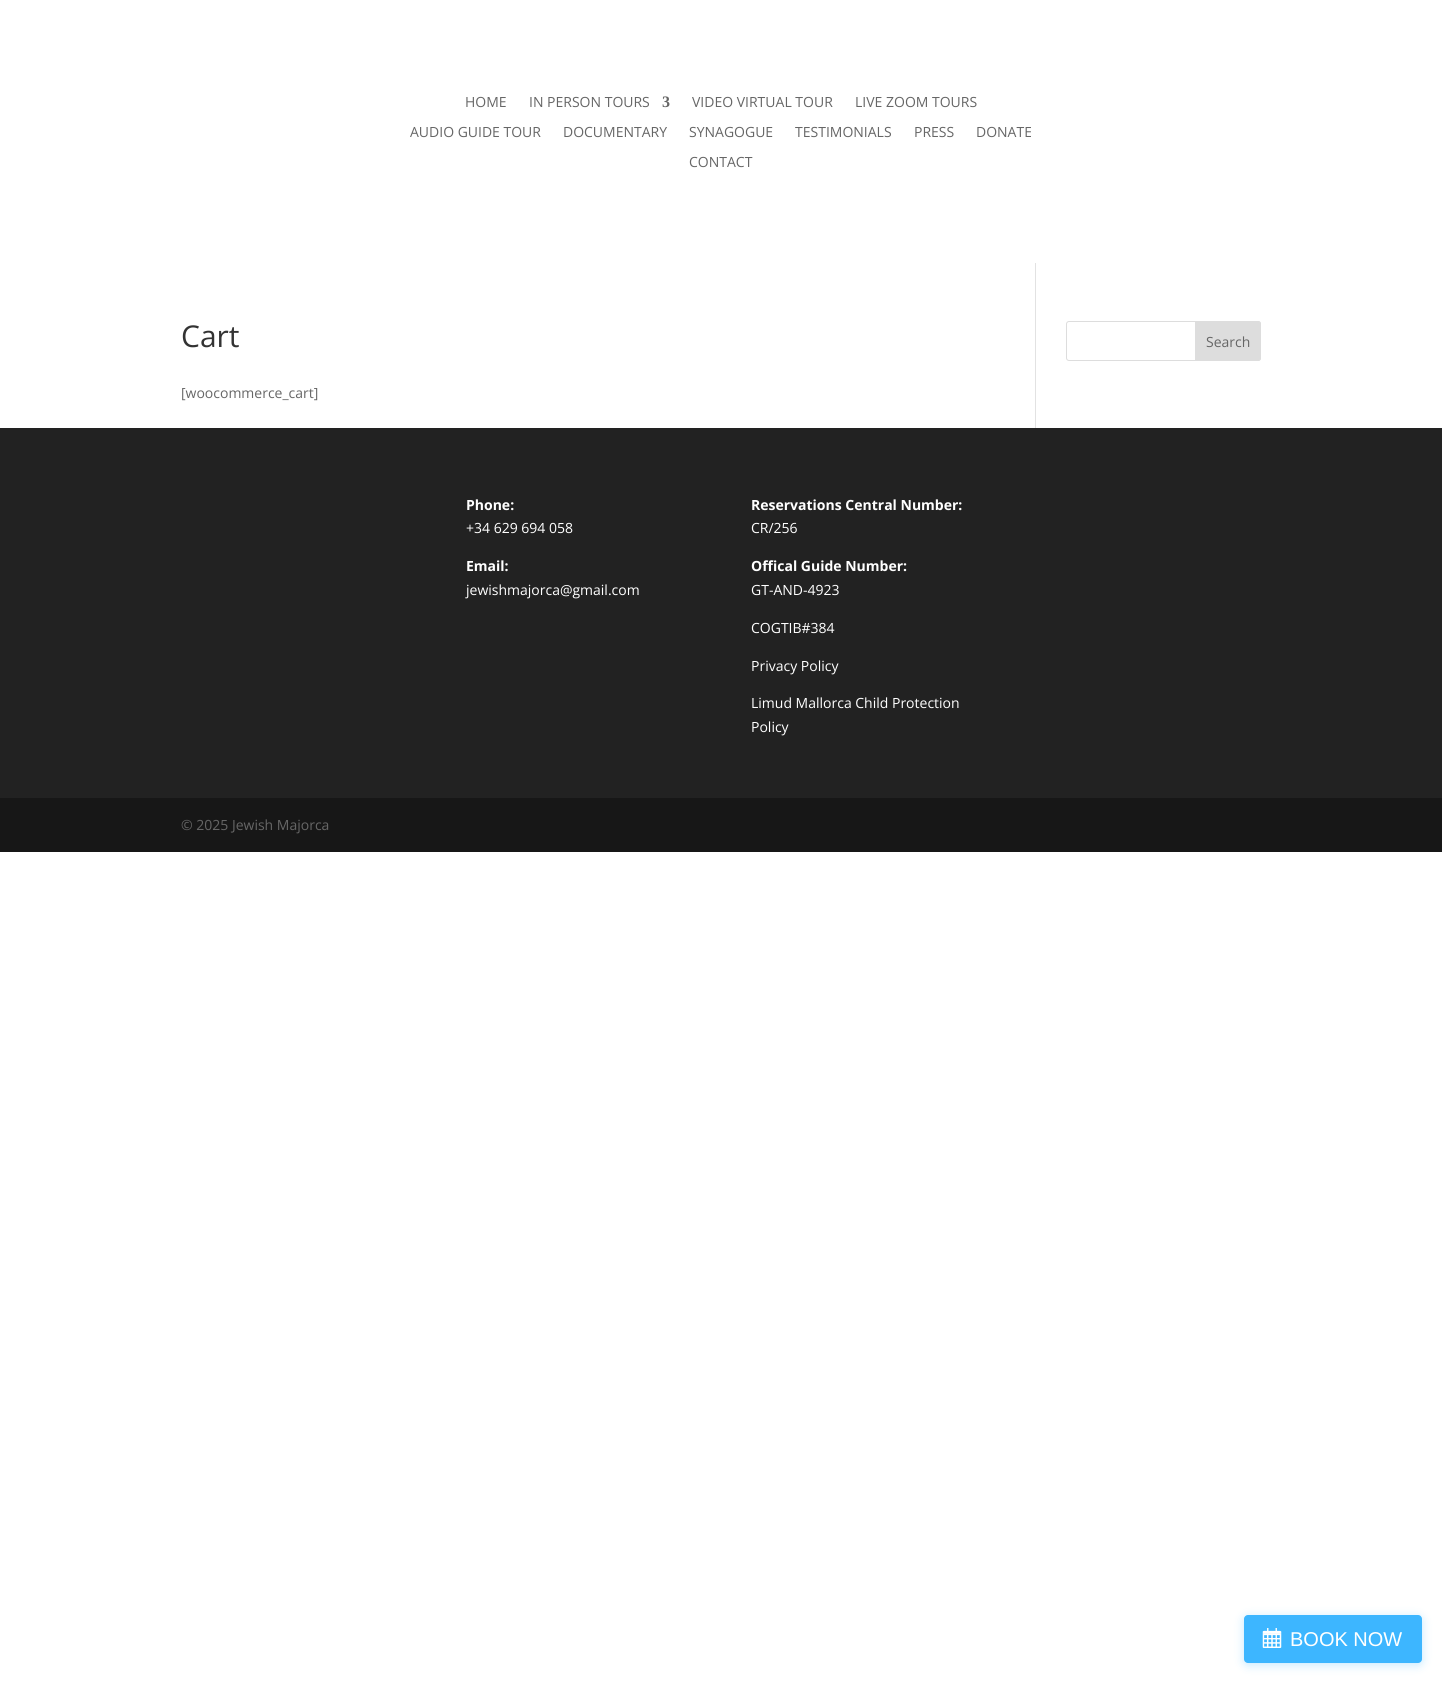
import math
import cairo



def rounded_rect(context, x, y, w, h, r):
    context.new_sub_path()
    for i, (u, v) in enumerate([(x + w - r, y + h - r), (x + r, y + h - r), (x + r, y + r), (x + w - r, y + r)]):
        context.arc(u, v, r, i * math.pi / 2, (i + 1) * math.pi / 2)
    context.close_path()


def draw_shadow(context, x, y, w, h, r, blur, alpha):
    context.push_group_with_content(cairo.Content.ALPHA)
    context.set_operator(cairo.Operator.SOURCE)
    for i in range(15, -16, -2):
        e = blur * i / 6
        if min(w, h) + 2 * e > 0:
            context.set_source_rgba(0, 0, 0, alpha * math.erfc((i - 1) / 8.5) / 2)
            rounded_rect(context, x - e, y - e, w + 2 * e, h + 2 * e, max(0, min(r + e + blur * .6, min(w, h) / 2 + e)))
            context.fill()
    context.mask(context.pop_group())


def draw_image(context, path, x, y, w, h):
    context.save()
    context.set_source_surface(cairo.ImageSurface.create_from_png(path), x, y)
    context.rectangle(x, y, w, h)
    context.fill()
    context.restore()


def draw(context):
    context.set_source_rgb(1, 1, 1)
    context.paint()
    context.set_source_rgb(226 / 255, 226 / 255, 226 / 255)
    context.rectangle(1035, 263, 1, 165)
    context.fill()
    rounded_rect(context, 1066.5, 321.5, 194, 39, 2.5)
    context.set_source_rgb(221 / 255, 221 / 255, 221 / 255)
    context.set_line_width(1)
    context.stroke()
    context.new_path()
    context.move_to(1195.5, 321.5)
    context.line_to(1258, 321.5)
    context.curve_to(1259.5, 321.5, 1260.5, 322.5, 1260.5, 324)
    context.line_to(1260.5, 358)
    context.curve_to(1260.5, 359.5, 1259.5, 360.5, 1258, 360.5)
    context.line_to(1195.5, 360.5)
    context.close_path()
    context.fill_preserve()
    context.stroke()
    context.set_source_rgb(34 / 255, 34 / 255, 34 / 255)
    context.rectangle(0, 428, 1442, 370)
    context.fill()
    context.set_source_rgb(23 / 255, 23 / 255, 23 / 255)
    context.rectangle(0, 798, 1442, 54)
    context.fill()
    context.set_source_rgb(61 / 255, 182 / 255, 1)
    draw_shadow(context, 1244, 1617, 178, 48, 4, 5, 0.3)
    context.set_source_rgb(61 / 255, 182 / 255, 1)
    rounded_rect(context, 1244, 1615, 178, 48, 4)
    context.fill()
    draw_image(context, "images/1.png", 1262, 1628, 20, 20)
    context.select_font_face("Open Sans")
    context.set_font_size(14)
    context.set_source_rgb(102 / 255, 102 / 255, 102 / 255)
    context.move_to(465, 107)
    context.show_text("HOME")
    context.move_to(529, 107)
    context.show_text("IN PERSON TOURS")
    context.select_font_face("Liberation Serif", cairo.FontSlant.NORMAL, cairo.FontWeight.BOLD)
    context.set_font_size(16)
    context.move_to(662, 107)
    context.show_text("3")
    context.select_font_face("Open Sans")
    context.set_font_size(14)
    context.move_to(692, 107)
    context.show_text("VIDEO VIRTUAL TOUR")
    context.move_to(855, 107)
    context.show_text("LIVE ZOOM TOURS")
    context.move_to(410, 137)
    context.show_text("AUDIO GUIDE TOUR")
    context.move_to(563, 137)
    context.show_text("DOCUMENTARY")
    context.move_to(689, 137)
    context.show_text("SYNAGOGUE")
    context.move_to(795, 137)
    context.show_text("TESTIMONIALS")
    context.move_to(914, 137)
    context.show_text("PRESS")
    context.move_to(976, 137)
    context.show_text("DONATE")
    context.move_to(689, 167)
    context.show_text("CONTACT")
    context.set_font_size(30)
    context.set_source_rgb(51 / 255, 51 / 255, 51 / 255)
    context.move_to(181, 347)
    context.show_text("Cart")
    context.set_font_size(14)
    context.set_source_rgb(102 / 255, 102 / 255, 102 / 255)
    context.move_to(181, 398)
    context.show_text("[woocommerce_cart]")
    context.move_to(1206, 347)
    context.show_text("Search")
    context.select_font_face("Open Sans", cairo.FontSlant.NORMAL, cairo.FontWeight.BOLD)
    context.set_source_rgb(1, 1, 1)
    context.move_to(466, 510)
    context.show_text("Phone:")
    context.select_font_face("Open Sans")
    context.move_to(466, 533)
    context.show_text("+34 629 694 058")
    context.select_font_face("Open Sans", cairo.FontSlant.NORMAL, cairo.FontWeight.BOLD)
    context.move_to(466, 571)
    context.show_text("Email:")
    context.select_font_face("Open Sans")
    context.move_to(466, 595)
    context.show_text("jewishmajorca@gmail.com")
    context.select_font_face("Open Sans", cairo.FontSlant.NORMAL, cairo.FontWeight.BOLD)
    context.move_to(751, 510)
    context.show_text("Reservations Central Number:")
    context.select_font_face("Open Sans")
    context.move_to(751, 533)
    context.show_text("CR/256")
    context.select_font_face("Open Sans", cairo.FontSlant.NORMAL, cairo.FontWeight.BOLD)
    context.move_to(751, 571)
    context.show_text("Offical Guide Number:")
    context.select_font_face("Open Sans")
    context.move_to(751, 595)
    context.show_text("GT-AND-4923")
    context.move_to(751, 633)
    context.show_text("COGTIB#384")
    context.move_to(751, 671)
    context.show_text("Privacy Policy")
    context.move_to(751, 708)
    context.show_text("Limud Mallorca Child Protection")
    context.move_to(751, 732)
    context.show_text("Policy")
    context.set_source_rgb(102 / 255, 102 / 255, 102 / 255)
    context.move_to(181, 830)
    context.show_text("© 2025 Jewish Majorca")
    context.select_font_face("Liberation Sans")
    context.set_font_size(20)
    context.set_source_rgb(1, 1, 1)
    context.move_to(1290, 1646)
    context.show_text("BOOK NOW")


surface = cairo.ImageSurface(cairo.Format.RGB24, 1442, 1683)
context = cairo.Context(surface)
options = cairo.FontOptions()
options.set_hint_metrics(cairo.HintMetrics.OFF)
options.set_hint_style(cairo.HintStyle.NONE)
context.set_font_options(options)
context.set_miter_limit(4)
draw(context)
surface.write_to_png("out.png")
